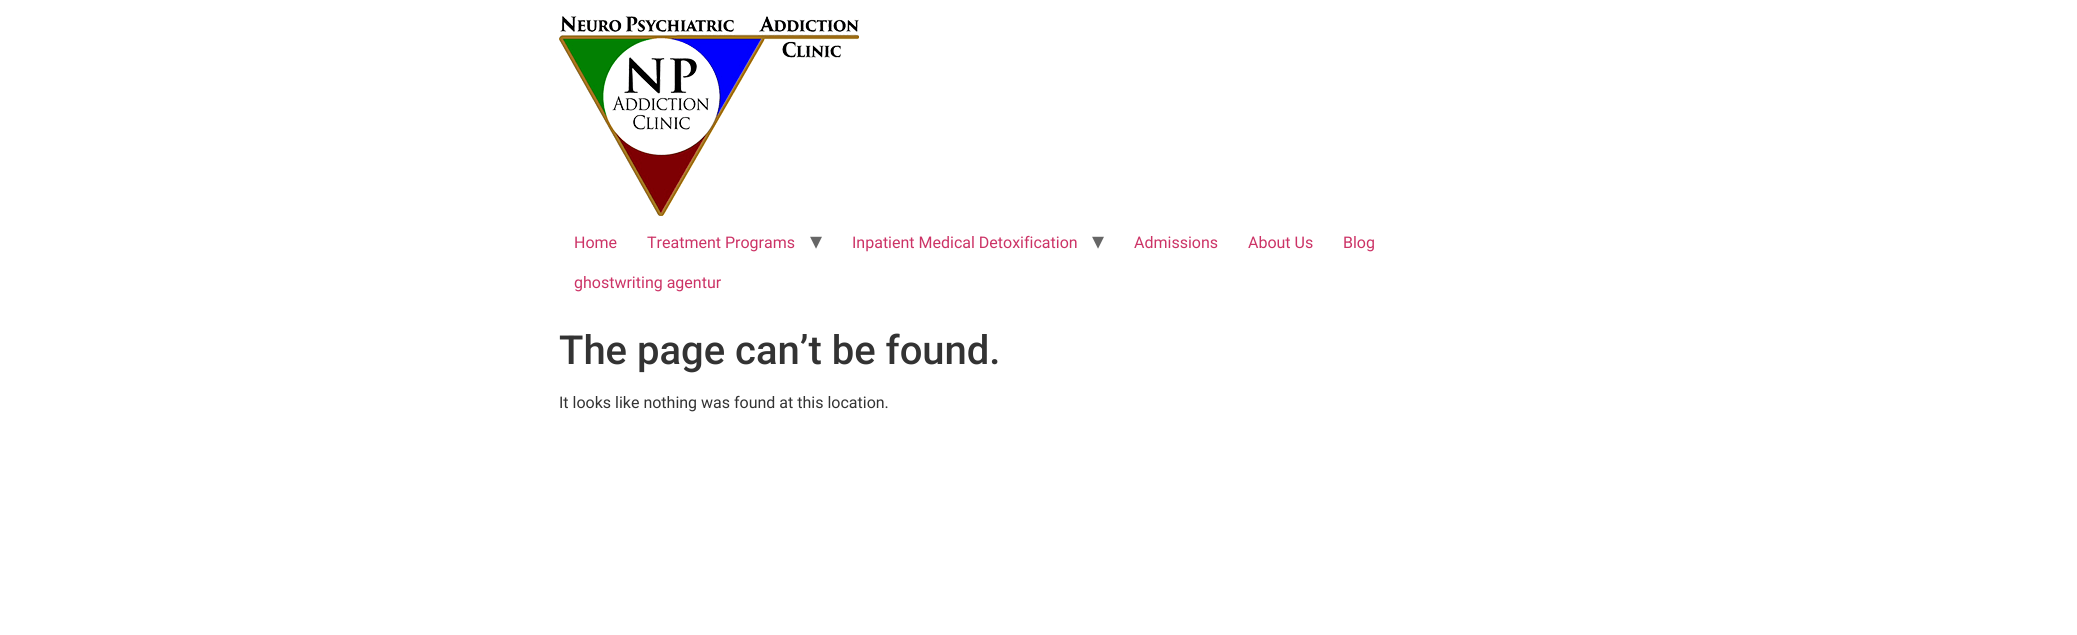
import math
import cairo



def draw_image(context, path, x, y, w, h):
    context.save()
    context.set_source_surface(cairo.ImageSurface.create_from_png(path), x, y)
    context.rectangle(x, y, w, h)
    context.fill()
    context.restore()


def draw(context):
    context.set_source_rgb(1, 1, 1)
    context.paint()
    draw_image(context, "images/1.png", 559, 16, 300, 200)
    context.select_font_face("Roboto")
    context.set_font_size(16)
    context.set_source_rgb(204 / 255, 51 / 255, 102 / 255)
    context.move_to(574, 248)
    context.show_text("Home")
    context.move_to(647, 248)
    context.show_text("Treatment Programs")
    context.select_font_face("DejaVu Sans")
    context.set_font_size(24)
    context.set_source_rgb(102 / 255, 102 / 255, 102 / 255)
    context.move_to(810, 249)
    context.show_text("▾")
    context.select_font_face("Roboto")
    context.set_font_size(16)
    context.set_source_rgb(204 / 255, 51 / 255, 102 / 255)
    context.move_to(852, 248)
    context.show_text("Inpatient Medical Detoxification")
    context.select_font_face("DejaVu Sans")
    context.set_font_size(24)
    context.set_source_rgb(102 / 255, 102 / 255, 102 / 255)
    context.move_to(1092, 249)
    context.show_text("▾")
    context.select_font_face("Roboto")
    context.set_font_size(16)
    context.set_source_rgb(204 / 255, 51 / 255, 102 / 255)
    context.move_to(1134, 248)
    context.show_text("Admissions")
    context.move_to(1248, 248)
    context.show_text("About Us")
    context.move_to(1343, 248)
    context.show_text("Blog")
    context.move_to(574, 288)
    context.show_text("ghostwriting agentur")
    context.select_font_face("Roboto Medium")
    context.set_font_size(40)
    context.set_source_rgb(51 / 255, 51 / 255, 51 / 255)
    context.move_to(559, 364)
    context.show_text("The page can’t be found.")
    context.select_font_face("Roboto")
    context.set_font_size(16)
    context.move_to(559, 408)
    context.show_text("It looks like nothing was found at this location.")


surface = cairo.ImageSurface(cairo.Format.RGB24, 2077, 635)
context = cairo.Context(surface)
options = cairo.FontOptions()
options.set_hint_metrics(cairo.HintMetrics.OFF)
options.set_hint_style(cairo.HintStyle.NONE)
context.set_font_options(options)
context.set_miter_limit(4)
draw(context)
surface.write_to_png("out.png")
